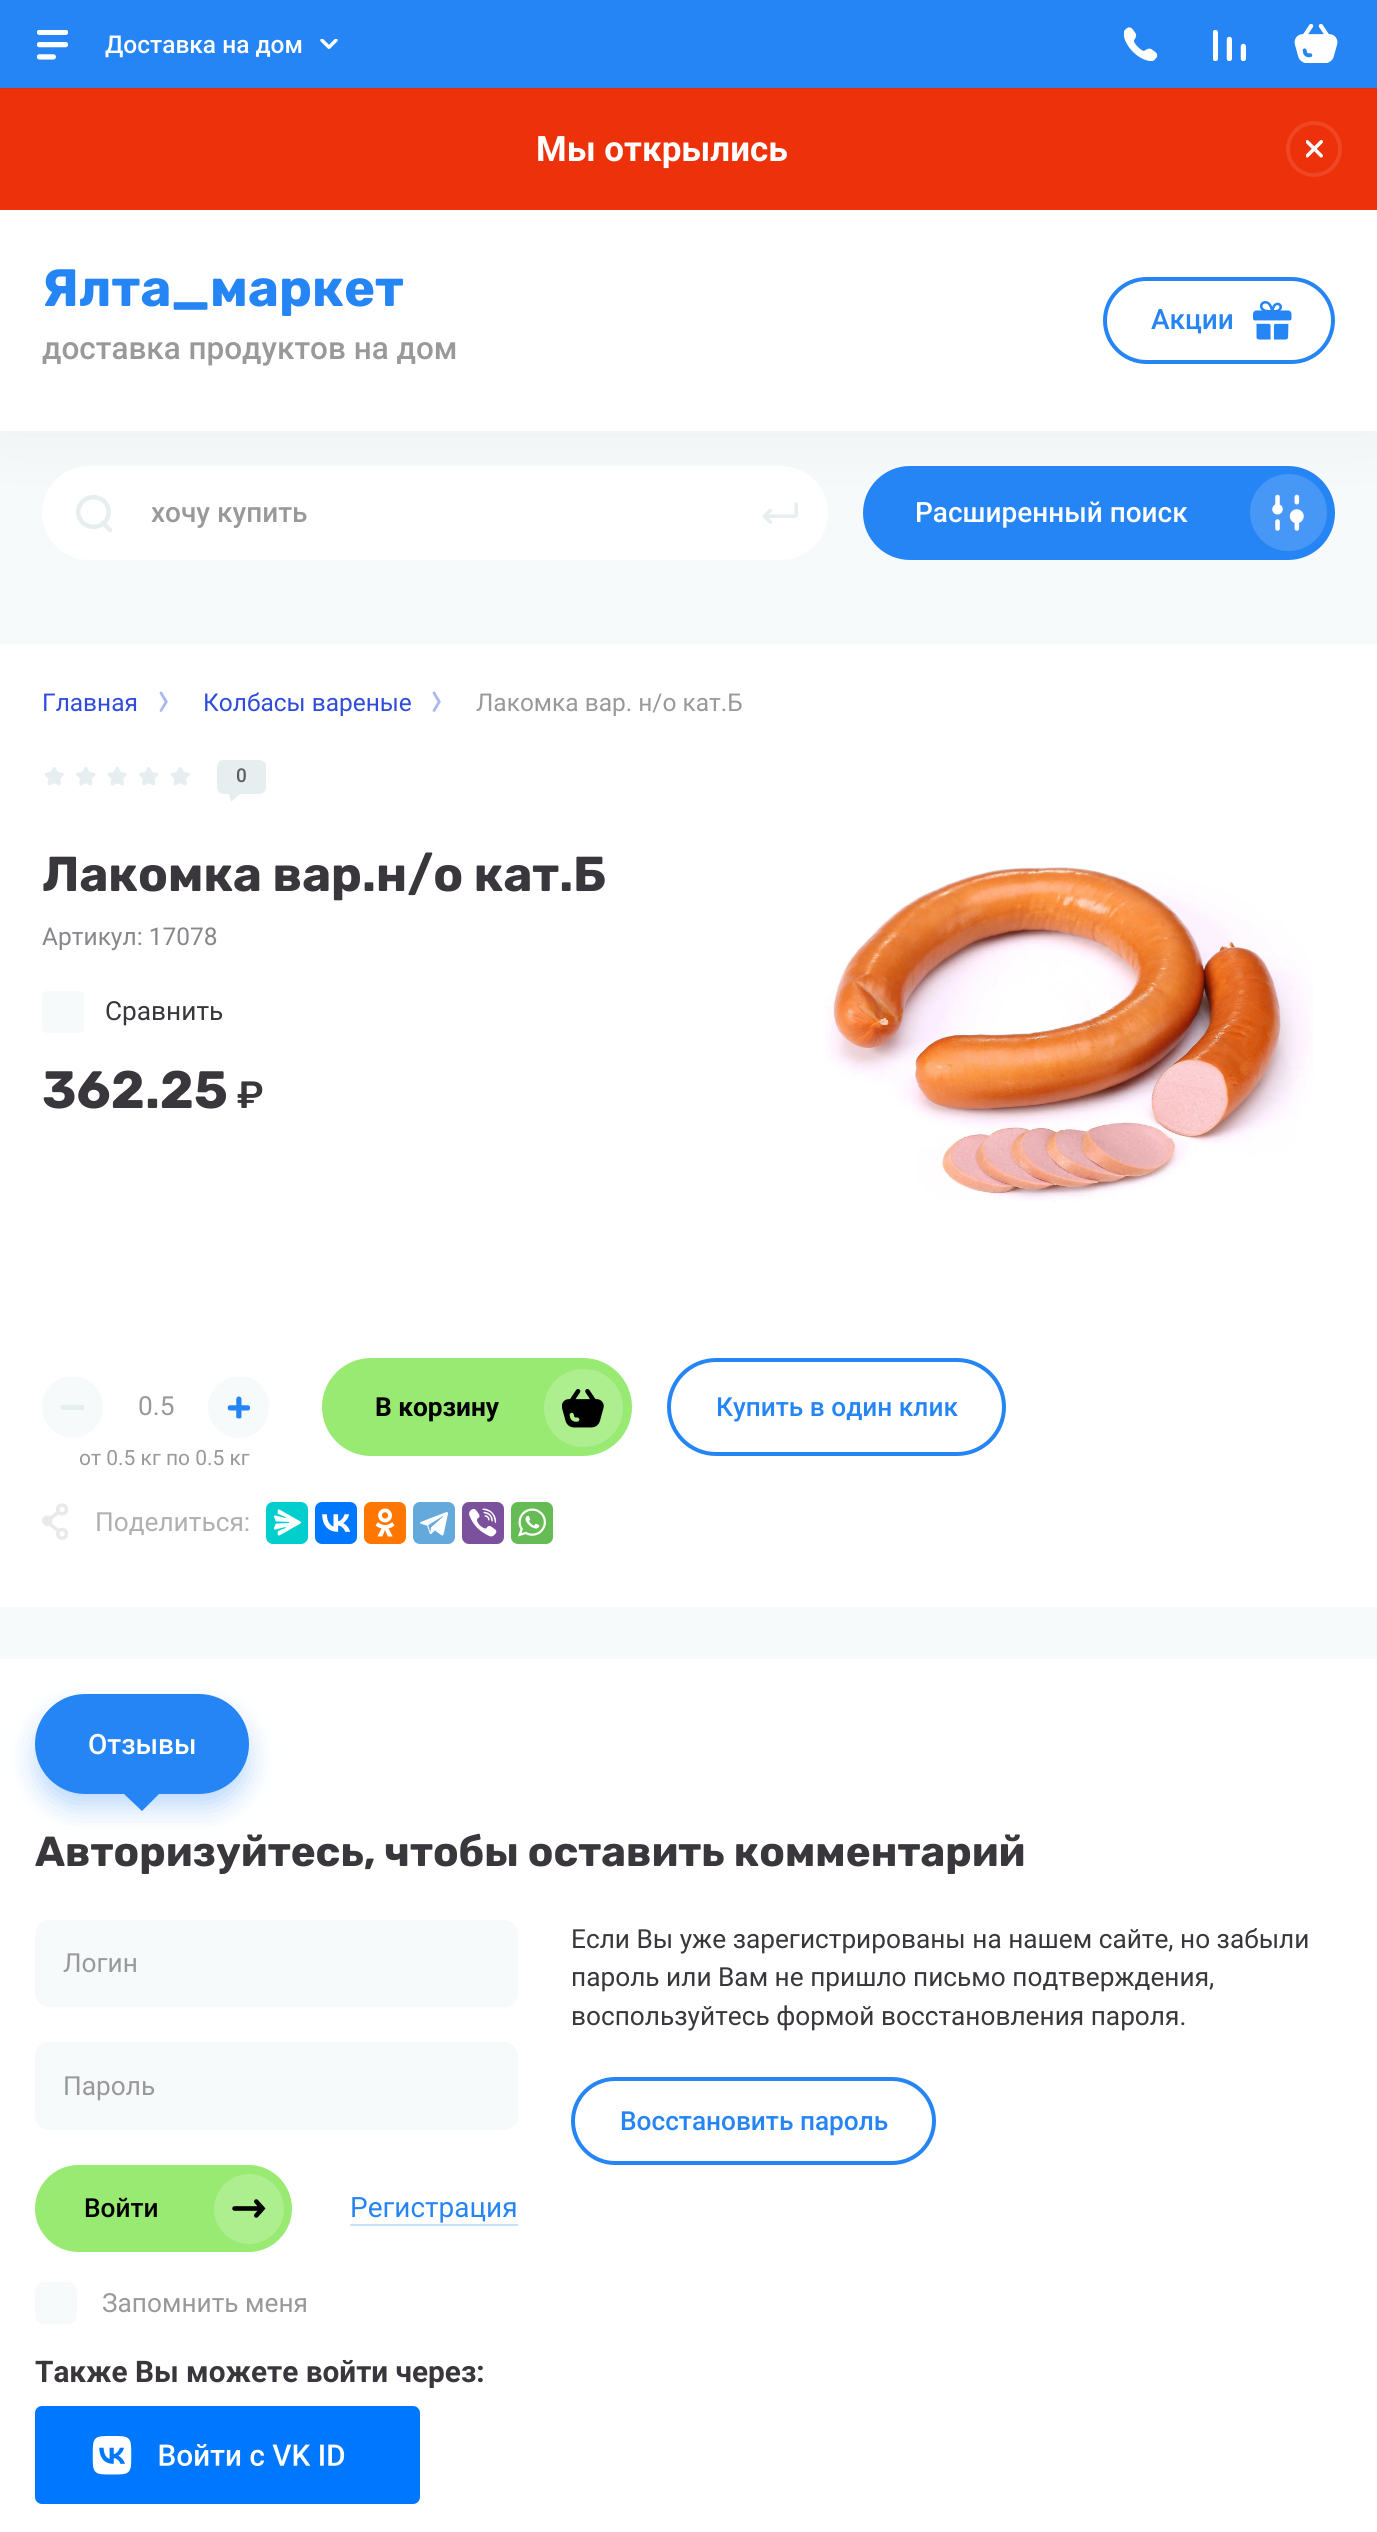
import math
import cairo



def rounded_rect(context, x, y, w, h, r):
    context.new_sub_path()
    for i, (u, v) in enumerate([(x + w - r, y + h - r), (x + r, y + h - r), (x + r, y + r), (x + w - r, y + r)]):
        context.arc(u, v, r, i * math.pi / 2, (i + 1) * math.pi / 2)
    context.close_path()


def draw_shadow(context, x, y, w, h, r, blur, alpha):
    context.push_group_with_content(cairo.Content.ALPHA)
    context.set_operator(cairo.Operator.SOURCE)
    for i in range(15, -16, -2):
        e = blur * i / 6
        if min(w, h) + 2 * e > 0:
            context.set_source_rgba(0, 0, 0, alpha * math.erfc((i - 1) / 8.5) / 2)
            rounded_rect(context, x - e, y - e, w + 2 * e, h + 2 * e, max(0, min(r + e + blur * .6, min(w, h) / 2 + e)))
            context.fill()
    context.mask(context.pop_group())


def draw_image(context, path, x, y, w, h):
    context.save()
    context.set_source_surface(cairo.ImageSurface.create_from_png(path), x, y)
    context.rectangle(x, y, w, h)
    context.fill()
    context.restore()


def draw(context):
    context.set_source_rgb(246 / 255, 250 / 255, 251 / 255)
    context.paint()
    context.set_source_rgb(225 / 255, 47 / 255, 10 / 255)
    context.rectangle(0, 88, 1377, 1)
    context.fill()
    context.set_source_rgb(38 / 255, 133 / 255, 244 / 255)
    context.rectangle(0, 0, 1377, 88)
    context.fill()
    draw_image(context, "images/1.png", 37, 30, 31, 30)
    draw_image(context, "images/2.png", 320, 39, 18, 10)
    draw_image(context, "images/3.png", 1124, 27, 34, 34)
    draw_image(context, "images/4.png", 1213, 30, 33, 31)
    draw_image(context, "images/5.png", 1294, 23, 44, 40)
    context.set_source_rgb(0, 0, 0)
    draw_shadow(context, 0, 212, 1377, 220, 0, 35, 0.05)
    context.set_source_rgb(237 / 255, 49 / 255, 10 / 255)
    context.rectangle(0, 89, 1377, 121)
    context.fill()
    context.arc(1314, 149, 26, 0, 2 * math.pi)
    context.set_source_rgb(239 / 255, 70 / 255, 35 / 255)
    context.set_line_width(4)
    context.stroke()
    draw_image(context, "images/6.png", 1306, 140, 17, 18)
    context.set_source_rgb(1, 1, 1)
    context.rectangle(0, 210, 1377, 221)
    context.fill()
    rounded_rect(context, 1105, 279, 228, 83, 41.5)
    context.set_source_rgb(38 / 255, 133 / 255, 244 / 255)
    context.stroke()
    draw_image(context, "images/7.png", 1253, 301, 39, 39)
    context.set_source_rgb(1, 1, 1)
    rounded_rect(context, 44, 468, 782, 90, 45)
    context.fill_preserve()
    context.stroke()
    rounded_rect(context, 78.25, 497.25, 30.5, 29.5, 14.75)
    context.set_source_rgb(231 / 255, 238 / 255, 240 / 255)
    context.set_line_width(4.5)
    context.stroke()
    context.new_path()
    context.move_to(103, 523)
    context.line_to(110, 530)
    context.set_line_cap(cairo.LineCap.ROUND)
    context.stroke()
    draw_image(context, "images/8.png", 762, 502, 36, 22)
    context.set_source_rgb(38 / 255, 133 / 255, 244 / 255)
    rounded_rect(context, 863, 466, 472, 94, 47)
    context.fill()
    context.set_source_rgb(71 / 255, 151 / 255, 246 / 255)
    context.arc(1288.5, 512.5, 38.5, 0, 2 * math.pi)
    context.fill()
    draw_image(context, "images/9.png", 1272, 494, 32, 37)
    context.set_source_rgb(1, 1, 1)
    context.rectangle(0, 644, 1377, 963)
    context.fill()
    draw_image(context, "images/10.png", 159, 691, 9, 21)
    draw_image(context, "images/10.png", 432, 691, 9, 21)
    draw_image(context, "images/11.png", 44, 767, 146, 19)
    context.save()
    context.rectangle(217, 760, 49, 42)
    context.clip()
    context.set_source_rgb(231 / 255, 238 / 255, 240 / 255)
    context.new_path()
    context.move_to(224, 760)
    context.curve_to(215, 760, 217, 771, 217, 777)
    context.curve_to(217, 783, 215, 793, 223, 794)
    context.line_to(229, 794)
    context.line_to(231, 802)
    context.line_to(240, 794)
    context.line_to(259, 794)
    context.curve_to(263, 794, 266, 791, 266, 788)
    context.line_to(266, 766)
    context.curve_to(266, 763, 263, 760, 259, 760)
    context.close_path()
    context.fill()
    context.restore()
    context.set_source_rgb(246 / 255, 250 / 255, 251 / 255)
    rounded_rect(context, 42, 991, 42, 42, 5)
    context.fill()
    draw_image(context, "images/12.png", 825, 867, 488, 335)
    context.save()
    context.rectangle(42, 1377, 228, 62)
    context.clip()
    context.new_path()
    context.move_to(73, 1376)
    context.curve_to(90, 1376, 103, 1390, 103, 1407)
    context.curve_to(103, 1424, 89, 1438, 73, 1438)
    context.curve_to(56, 1438, 42, 1424, 42, 1407)
    context.curve_to(42, 1390, 56, 1376, 73, 1376)
    context.close_path()
    context.fill()
    context.restore()
    context.set_source_rgb(231 / 255, 238 / 255, 240 / 255)
    context.rectangle(61, 1405, 23, 5)
    context.fill()
    context.save()
    context.rectangle(42, 1377, 228, 62)
    context.clip()
    context.set_source_rgb(246 / 255, 250 / 255, 251 / 255)
    context.new_path()
    context.move_to(239, 1376)
    context.curve_to(256, 1376, 270, 1390, 269, 1407)
    context.curve_to(269, 1424, 256, 1438, 239, 1438)
    context.curve_to(222, 1438, 208, 1424, 208, 1407)
    context.curve_to(208, 1390, 222, 1376, 239, 1376)
    context.close_path()
    context.fill()
    context.restore()
    draw_image(context, "images/13.png", 227, 1396, 24, 23)
    context.set_source_rgb(152 / 255, 234 / 255, 114 / 255)
    rounded_rect(context, 322, 1358, 310, 98, 49)
    context.fill()
    context.set_source_rgb(173 / 255, 238 / 255, 142 / 255)
    rounded_rect(context, 544, 1369, 79, 78, 39)
    context.fill()
    draw_image(context, "images/14.png", 562, 1389, 42, 39)
    rounded_rect(context, 669, 1360, 335, 94, 47)
    context.set_source_rgb(38 / 255, 133 / 255, 244 / 255)
    context.set_line_width(4)
    context.set_line_cap(cairo.LineCap.BUTT)
    context.stroke()
    draw_image(context, "images/15.png", 42, 1503, 26, 37)
    context.set_source_rgb(3 / 255, 206 / 255, 206 / 255)
    rounded_rect(context, 266, 1502, 42, 42, 7)
    context.fill()
    draw_image(context, "images/16.png", 273, 1509, 28, 27)
    context.set_source_rgb(0, 119 / 255, 1)
    rounded_rect(context, 315, 1502, 42, 42, 7)
    context.fill()
    draw_image(context, "images/17.png", 322, 1514, 29, 18)
    context.set_source_rgb(1, 119 / 255, 0)
    rounded_rect(context, 364, 1502, 42, 42, 7)
    context.fill()
    draw_image(context, "images/18.png", 375, 1508, 20, 29)
    context.set_source_rgb(100 / 255, 169 / 255, 220 / 255)
    rounded_rect(context, 413, 1502, 42, 42, 7)
    context.fill()
    draw_image(context, "images/19.png", 420, 1512, 28, 24)
    context.set_source_rgb(123 / 255, 81 / 255, 157 / 255)
    rounded_rect(context, 462, 1502, 42, 42, 7)
    context.fill()
    draw_image(context, "images/20.png", 469, 1508, 28, 29)
    context.set_source_rgb(101 / 255, 188 / 255, 84 / 255)
    rounded_rect(context, 511, 1502, 42, 42, 7)
    context.fill()
    draw_image(context, "images/21.png", 518, 1508, 28, 29)
    context.set_source_rgb(1, 1, 1)
    context.rectangle(0, 1659, 1377, 873)
    context.fill()
    context.set_source_rgb(38 / 255, 133 / 255, 244 / 255)
    draw_shadow(context, 35, 1708, 214, 100, 50, 13, 0.3)
    context.set_source_rgb(38 / 255, 133 / 255, 244 / 255)
    rounded_rect(context, 35, 1694, 214, 100, 50)
    context.fill()
    context.new_path()
    context.move_to(124, 1794)
    context.line_to(159, 1794)
    context.line_to(142, 1811)
    context.close_path()
    context.fill()
    context.set_source_rgb(246 / 255, 250 / 255, 251 / 255)
    rounded_rect(context, 35, 1920, 483, 87, 14)
    context.fill()
    rounded_rect(context, 35, 2042, 483, 88, 14)
    context.fill()
    context.set_source_rgb(152 / 255, 234 / 255, 114 / 255)
    rounded_rect(context, 35, 2165, 257, 87, 43.5)
    context.fill()
    context.set_source_rgb(173 / 255, 238 / 255, 142 / 255)
    context.arc(249, 2209, 35, 0, 2 * math.pi)
    context.fill()
    draw_image(context, "images/22.png", 232, 2199, 34, 19)
    context.set_source_rgb(201 / 255, 225 / 255, 252 / 255)
    context.rectangle(350, 2224, 168, 2)
    context.fill()
    context.set_source_rgb(246 / 255, 250 / 255, 251 / 255)
    rounded_rect(context, 35, 2282, 42, 42, 9)
    context.fill()
    rounded_rect(context, 573, 2079, 361, 84, 42)
    context.set_source_rgb(38 / 255, 133 / 255, 244 / 255)
    context.stroke()
    context.set_source_rgb(0, 119 / 255, 1)
    rounded_rect(context, 35, 2406, 385, 98, 7)
    context.fill()
    draw_image(context, "images/23.png", 92, 2436, 253, 39)
    context.select_font_face("Roboto Medium")
    context.set_font_size(24.5)
    context.set_source_rgb(1, 1, 1)
    context.move_to(105, 53)
    context.show_text("Доставка на дом")
    context.select_font_face("Roboto", cairo.FontSlant.NORMAL, cairo.FontWeight.BOLD)
    context.set_font_size(35)
    context.move_to(536, 161)
    context.show_text("Мы открылись")
    context.select_font_face("Rubik", cairo.FontSlant.NORMAL, cairo.FontWeight.BOLD)
    context.set_font_size(52.5)
    context.set_source_rgb(38 / 255, 133 / 255, 244 / 255)
    context.move_to(42, 306)
    context.show_text("Ялта_маркет")
    context.select_font_face("Roboto Medium")
    context.set_font_size(31.5)
    context.set_source_rgb(153 / 255, 153 / 255, 153 / 255)
    context.move_to(42, 359)
    context.show_text("доставка продуктов на дом")
    context.set_font_size(28)
    context.set_source_rgb(38 / 255, 133 / 255, 244 / 255)
    context.move_to(1151, 329)
    context.show_text("Акции")
    context.set_source_rgb(153 / 255, 153 / 255, 153 / 255)
    context.move_to(151, 522)
    context.show_text("хочу купить")
    context.set_source_rgb(1, 1, 1)
    context.move_to(915, 522)
    context.show_text("Расширенный поиск")
    context.select_font_face("Roboto")
    context.set_font_size(24.5)
    context.set_source_rgb(48 / 255, 76 / 255, 220 / 255)
    context.move_to(42, 711)
    context.show_text("Главная")
    context.move_to(203, 711)
    context.show_text("Колбасы вареные")
    context.set_source_rgb(153 / 255, 153 / 255, 153 / 255)
    context.move_to(476, 711)
    context.show_text("Лакомка вар. н/о кат.Б")
    context.select_font_face("Roboto Medium")
    context.set_font_size(19)
    context.set_source_rgb(92 / 255, 95 / 255, 96 / 255)
    context.move_to(236, 782)
    context.show_text("0")
    context.select_font_face("Rubik", cairo.FontSlant.NORMAL, cairo.FontWeight.BOLD)
    context.set_font_size(49)
    context.set_source_rgb(57 / 255, 54 / 255, 60 / 255)
    context.move_to(42, 891)
    context.show_text("Лакомка вар.н/о кат.Б")
    context.select_font_face("Roboto")
    context.set_font_size(24.5)
    context.set_source_rgb(136 / 255, 134 / 255, 138 / 255)
    context.move_to(42, 945)
    context.show_text("Артикул: 17078")
    context.set_font_size(26.25)
    context.set_source_rgb(57 / 255, 54 / 255, 60 / 255)
    context.move_to(105, 1020)
    context.show_text("Сравнить")
    context.select_font_face("Rubik", cairo.FontSlant.NORMAL, cairo.FontWeight.BOLD)
    context.set_font_size(52.5)
    context.move_to(42, 1108)
    context.show_text("362.25")
    context.select_font_face("Rubik Medium")
    context.set_font_size(38)
    context.move_to(237, 1108)
    context.show_text("₽")
    context.select_font_face("Roboto")
    context.set_font_size(26.25)
    context.set_source_rgb(153 / 255, 153 / 255, 153 / 255)
    context.move_to(138, 1415)
    context.show_text("0.5")
    context.set_font_size(21)
    context.move_to(79, 1465)
    context.show_text("от 0.5 кг по 0.5 кг")
    context.select_font_face("Roboto", cairo.FontSlant.NORMAL, cairo.FontWeight.BOLD)
    context.set_font_size(26.25)
    context.set_source_rgb(0, 0, 0)
    context.move_to(375, 1416)
    context.show_text("В корзину")
    context.select_font_face("Roboto Medium")
    context.set_source_rgb(38 / 255, 133 / 255, 244 / 255)
    context.move_to(716, 1416)
    context.show_text("Купить в один клик")
    context.select_font_face("Roboto")
    context.set_source_rgb(176 / 255, 175 / 255, 177 / 255)
    context.move_to(95, 1531)
    context.show_text("Поделиться:")
    context.select_font_face("Roboto Medium")
    context.set_font_size(28)
    context.set_source_rgb(1, 1, 1)
    context.move_to(88, 1754)
    context.show_text("Отзывы")
    context.select_font_face("Rubik", cairo.FontSlant.NORMAL, cairo.FontWeight.BOLD)
    context.set_font_size(42)
    context.set_source_rgb(57 / 255, 54 / 255, 60 / 255)
    context.move_to(35, 1866)
    context.show_text("Авторизуйтесь, чтобы оставить комментарий")
    context.select_font_face("Roboto")
    context.set_font_size(26.25)
    context.set_source_rgb(153 / 255, 153 / 255, 153 / 255)
    context.move_to(63, 1972)
    context.show_text("Логин")
    context.move_to(63, 2095)
    context.show_text("Пароль")
    context.select_font_face("Roboto Medium")
    context.set_source_rgb(0, 0, 0)
    context.move_to(84, 2217)
    context.show_text("Войти")
    context.select_font_face("Roboto")
    context.set_font_size(28)
    context.set_source_rgb(38 / 255, 133 / 255, 244 / 255)
    context.move_to(350, 2217)
    context.show_text("Регистрация")
    context.set_font_size(26.25)
    context.set_source_rgb(153 / 255, 153 / 255, 153 / 255)
    context.move_to(102, 2312)
    context.show_text("Запомнить меня")
    context.set_source_rgb(57 / 255, 54 / 255, 60 / 255)
    context.move_to(571, 1948)
    context.show_text("Если Вы уже зарегистрированы на нашем сайте, но забыли")
    context.move_to(571, 1986)
    context.show_text("пароль или Вам не пришло письмо подтверждения,")
    context.move_to(571, 2025)
    context.show_text("воспользуйтесь формой восстановления пароля.")
    context.select_font_face("Roboto Medium")
    context.set_source_rgb(38 / 255, 133 / 255, 244 / 255)
    context.move_to(620, 2130)
    context.show_text("Восстановить пароль")
    context.select_font_face("Roboto", cairo.FontSlant.NORMAL, cairo.FontWeight.BOLD)
    context.set_font_size(29.75)
    context.set_source_rgb(57 / 255, 54 / 255, 60 / 255)
    context.move_to(35, 2382)
    context.show_text("Также Вы можете войти через:")


surface = cairo.ImageSurface(cairo.Format.RGB24, 1377, 2532)
context = cairo.Context(surface)
options = cairo.FontOptions()
options.set_hint_metrics(cairo.HintMetrics.OFF)
options.set_hint_style(cairo.HintStyle.NONE)
context.set_font_options(options)
context.set_miter_limit(4)
draw(context)
surface.write_to_png("out.png")
